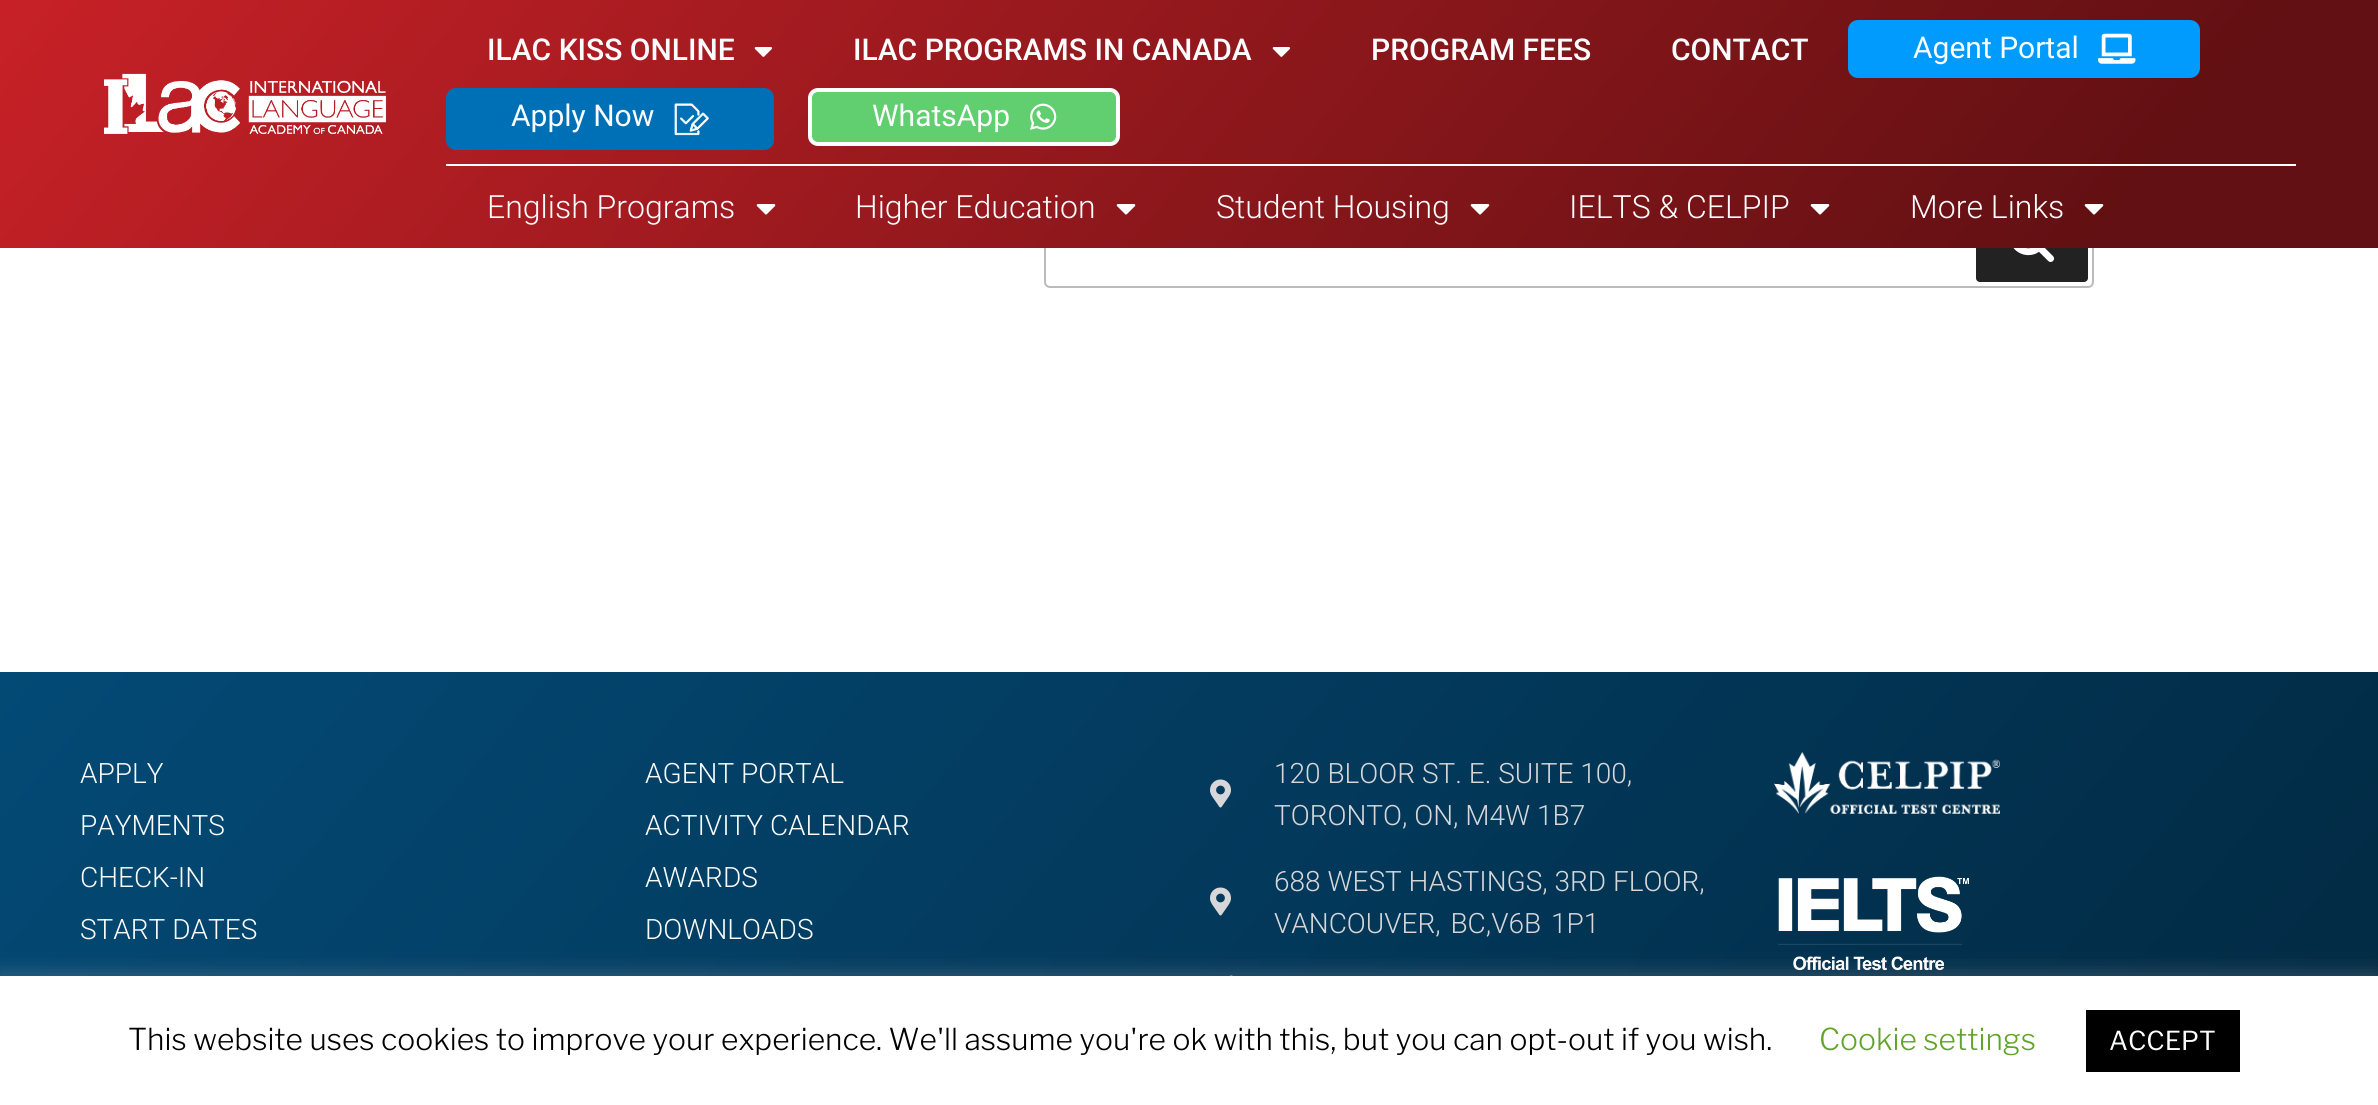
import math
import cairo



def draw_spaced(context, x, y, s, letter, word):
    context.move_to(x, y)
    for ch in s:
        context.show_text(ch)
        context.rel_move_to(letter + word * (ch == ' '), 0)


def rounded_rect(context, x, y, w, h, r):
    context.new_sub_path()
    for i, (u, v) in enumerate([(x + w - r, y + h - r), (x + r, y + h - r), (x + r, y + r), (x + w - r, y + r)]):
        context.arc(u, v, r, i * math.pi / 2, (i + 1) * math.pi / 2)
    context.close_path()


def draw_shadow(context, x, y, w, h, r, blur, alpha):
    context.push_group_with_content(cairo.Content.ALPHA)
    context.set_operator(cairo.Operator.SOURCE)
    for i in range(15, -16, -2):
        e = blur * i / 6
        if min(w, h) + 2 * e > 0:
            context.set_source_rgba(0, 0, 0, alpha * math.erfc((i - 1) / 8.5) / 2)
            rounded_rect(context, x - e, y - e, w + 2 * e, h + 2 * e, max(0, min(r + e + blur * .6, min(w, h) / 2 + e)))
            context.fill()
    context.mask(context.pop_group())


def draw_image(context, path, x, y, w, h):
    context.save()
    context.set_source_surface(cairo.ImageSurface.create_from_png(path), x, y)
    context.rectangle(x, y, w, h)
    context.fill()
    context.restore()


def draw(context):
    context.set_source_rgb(1, 1, 1)
    context.paint()
    rounded_rect(context, 1045, 193, 1048, 94, 5)
    context.set_source_rgb(187 / 255, 187 / 255, 187 / 255)
    context.stroke()
    context.set_source_rgb(34 / 255, 34 / 255, 34 / 255)
    rounded_rect(context, 1976, 198, 112, 84, 4)
    context.fill()
    gradient = cairo.LinearGradient(430, -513, 1948, 761)
    gradient.add_color_stop_rgba(0, 199 / 255, 33 / 255, 39 / 255, 1)
    gradient.add_color_stop_rgba(0.89, 98 / 255, 16 / 255, 19 / 255, 1)
    context.set_source(gradient)
    context.rectangle(0, 0, 2378, 248)
    context.fill()
    draw_image(context, "images/1.png", 104, 73, 283, 61)
    draw_image(context, "images/2.png", 754, 47, 19, 10)
    draw_image(context, "images/3.png", 1272, 47, 19, 10)
    context.set_source_rgb(0, 155 / 255, 252 / 255)
    rounded_rect(context, 1850, 22, 348, 54, 8)
    context.fill_preserve()
    context.set_line_width(4)
    context.stroke()
    draw_image(context, "images/4.png", 2098, 33, 38, 31)
    context.set_source_rgb(0, 112 / 255, 182 / 255)
    rounded_rect(context, 448, 90, 324, 58, 8)
    context.fill_preserve()
    context.stroke()
    draw_image(context, "images/5.png", 674, 103, 35, 33)
    context.set_source_rgb(97 / 255, 206 / 255, 112 / 255)
    rounded_rect(context, 810, 90, 308, 54, 8)
    context.fill_preserve()
    context.set_source_rgb(1, 1, 1)
    context.stroke()
    draw_image(context, "images/6.png", 1030, 103, 27, 27)
    context.rectangle(446, 164, 1850, 2)
    context.fill()
    draw_image(context, "images/7.png", 756, 204, 20, 11)
    draw_image(context, "images/8.png", 1116, 204, 20, 11)
    draw_image(context, "images/9.png", 1470, 204, 20, 11)
    draw_image(context, "images/10.png", 1810, 204, 20, 11)
    draw_image(context, "images/11.png", 2084, 204, 20, 11)
    draw_image(context, "images/12.png", 2013, 248, 42, 14)
    gradient = cairo.LinearGradient(197, 437, 2181, 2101)
    gradient.add_color_stop_rgba(0, 3 / 255, 74 / 255, 118 / 255, 1)
    gradient.add_color_stop_rgba(0.89, 2 / 255, 38 / 255, 61 / 255, 1)
    context.set_source(gradient)
    context.rectangle(0, 672, 2378, 304)
    context.fill()
    draw_image(context, "images/13.png", 1210, 779, 21, 29)
    draw_image(context, "images/14.png", 1210, 887, 21, 29)
    draw_image(context, "images/15.png", 1230, 975, 3, 1)
    draw_image(context, "images/16.png", 1774, 752, 226, 62)
    draw_image(context, "images/17.png", 1778, 876, 191, 95)
    context.set_source_rgb(172 / 255, 171 / 255, 171 / 255)
    draw_shadow(context, 0, 974, 2378, 130, 0, 10, 0.3)
    context.set_source_rgb(1, 1, 1)
    context.rectangle(0, 976, 2378, 129)
    context.fill()
    context.set_source_rgb(0, 0, 0)
    context.rectangle(2086, 1010, 154, 62)
    context.fill()
    context.select_font_face("Roboto Medium")
    context.set_font_size(30)
    context.set_source_rgb(252 / 255, 253 / 255, 254 / 255)
    context.move_to(487, 60)
    context.show_text("ILAC KISS ONLINE")
    context.move_to(853, 60)
    context.show_text("ILAC PROGRAMS IN CANADA")
    context.move_to(1371, 60)
    context.show_text("PROGRAM FEES")
    context.move_to(1671, 60)
    context.show_text("CONTACT")
    context.select_font_face("Roboto")
    context.move_to(1913, 58)
    context.show_text("Agent Portal")
    context.move_to(511, 126)
    context.show_text("Apply Now")
    context.move_to(872, 126)
    context.show_text("WhatsApp")
    context.select_font_face("Roboto Light")
    context.set_font_size(32)
    context.move_to(487, 218)
    context.show_text("English Programs")
    context.move_to(855, 218)
    context.show_text("Higher Education")
    context.move_to(1216, 218)
    context.show_text("Student Housing")
    context.move_to(1569, 218)
    context.show_text("IELTS & CELPIP")
    context.move_to(1910, 218)
    context.show_text("More Links")
    context.set_font_size(28)
    context.move_to(80, 783)
    context.show_text("APPLY")
    context.move_to(80, 835)
    context.show_text("PAYMENTS")
    context.move_to(80, 887)
    context.show_text("CHECK-IN")
    context.move_to(80, 939)
    context.show_text("START DATES")
    context.move_to(645, 783)
    context.show_text("AGENT PORTAL")
    context.move_to(645, 835)
    context.show_text("ACTIVITY CALENDAR")
    context.move_to(645, 887)
    context.show_text("AWARDS")
    context.move_to(645, 939)
    context.show_text("DOWNLOADS")
    context.set_source_rgb(215 / 255, 215 / 255, 217 / 255)
    context.move_to(1274, 783)
    context.show_text("120 BLOOR ST. E. SUITE 100,")
    context.move_to(1274, 825)
    context.show_text("TORONTO, ON, M4W 1B7")
    context.move_to(1274, 891)
    context.show_text("688 WEST HASTINGS, 3RD FLOOR,")
    draw_spaced(context, 1274, 933, "VANCOUVER, BC,V6B 1P1", 0, 3)
    context.select_font_face("Libre Franklin Thin")
    context.set_font_size(30)
    context.set_source_rgb(0, 0, 0)
    context.move_to(128, 1050)
    context.show_text("This website uses cookies to improve your experience. We'll assume you're ok with this, but you can opt-out if you wish.")
    context.set_source_rgb(98 / 255, 163 / 255, 41 / 255)
    context.move_to(1819, 1050)
    context.show_text("Cookie settings")
    context.select_font_face("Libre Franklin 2 Thin")
    context.set_font_size(26)
    context.set_source_rgb(252 / 255, 253 / 255, 254 / 255)
    context.move_to(2109, 1050)
    context.show_text("ACCEPT")


surface = cairo.ImageSurface(cairo.Format.RGB24, 2378, 1105)
context = cairo.Context(surface)
options = cairo.FontOptions()
options.set_hint_metrics(cairo.HintMetrics.OFF)
options.set_hint_style(cairo.HintStyle.NONE)
context.set_font_options(options)
context.set_miter_limit(4)
draw(context)
surface.write_to_png("out.png")
